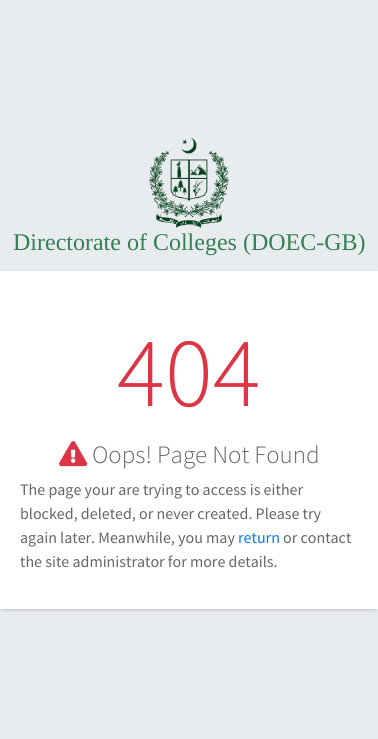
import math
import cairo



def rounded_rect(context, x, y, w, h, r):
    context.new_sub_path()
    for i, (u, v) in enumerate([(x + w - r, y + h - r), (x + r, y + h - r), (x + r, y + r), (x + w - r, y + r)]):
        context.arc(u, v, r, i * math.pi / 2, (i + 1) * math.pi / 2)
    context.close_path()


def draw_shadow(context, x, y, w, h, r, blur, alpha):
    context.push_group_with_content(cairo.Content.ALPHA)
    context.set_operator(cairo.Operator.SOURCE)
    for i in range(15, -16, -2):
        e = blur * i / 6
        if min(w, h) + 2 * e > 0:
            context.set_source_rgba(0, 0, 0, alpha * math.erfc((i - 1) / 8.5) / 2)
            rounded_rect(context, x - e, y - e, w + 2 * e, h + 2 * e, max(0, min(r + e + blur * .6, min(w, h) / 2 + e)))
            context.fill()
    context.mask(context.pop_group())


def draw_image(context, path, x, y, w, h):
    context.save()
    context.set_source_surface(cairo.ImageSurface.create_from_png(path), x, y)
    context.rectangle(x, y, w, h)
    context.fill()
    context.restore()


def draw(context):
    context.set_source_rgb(233 / 255, 236 / 255, 239 / 255)
    context.paint()
    draw_image(context, "images/1.png", 149, 138, 80, 90)
    context.set_source_rgb(0, 0, 0)
    draw_shadow(context, 0, 272, 378, 338, 4, 1.5, 0.2)
    context.set_source_rgb(1, 1, 1)
    context.rectangle(0, 271, 378, 338)
    context.fill()
    draw_image(context, "images/2.png", 59, 441, 29, 26)
    context.select_font_face("Liberation Serif")
    context.set_font_size(24)
    context.set_source_rgb(51 / 255, 128 / 255, 85 / 255)
    context.move_to(13, 250)
    context.show_text("Directorate of Colleges (DOEC-GB)")
    context.select_font_face("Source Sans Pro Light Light")
    context.set_font_size(100)
    context.set_source_rgb(220 / 255, 53 / 255, 69 / 255)
    context.move_to(117, 406)
    context.show_text("404")
    context.set_font_size(25)
    context.set_source_rgb(102 / 255, 102 / 255, 102 / 255)
    context.move_to(92, 463)
    context.show_text("Oops! Page Not Found")
    context.select_font_face("Source Sans Pro")
    context.set_font_size(16)
    context.move_to(20, 495)
    context.show_text("The page your are trying to access is either")
    context.move_to(20, 519)
    context.show_text("blocked, deleted, or never created. Please try")
    context.move_to(20, 543)
    context.show_text("again later. Meanwhile, you may")
    context.set_source_rgb(0, 123 / 255, 1)
    context.move_to(238, 543)
    context.show_text("return")
    context.set_source_rgb(102 / 255, 102 / 255, 102 / 255)
    context.move_to(283, 543)
    context.show_text("or contact")
    context.move_to(20, 567)
    context.show_text("the site administrator for more details.")


surface = cairo.ImageSurface(cairo.Format.RGB24, 378, 739)
context = cairo.Context(surface)
options = cairo.FontOptions()
options.set_hint_metrics(cairo.HintMetrics.OFF)
options.set_hint_style(cairo.HintStyle.NONE)
context.set_font_options(options)
context.set_miter_limit(4)
draw(context)
surface.write_to_png("out.png")
